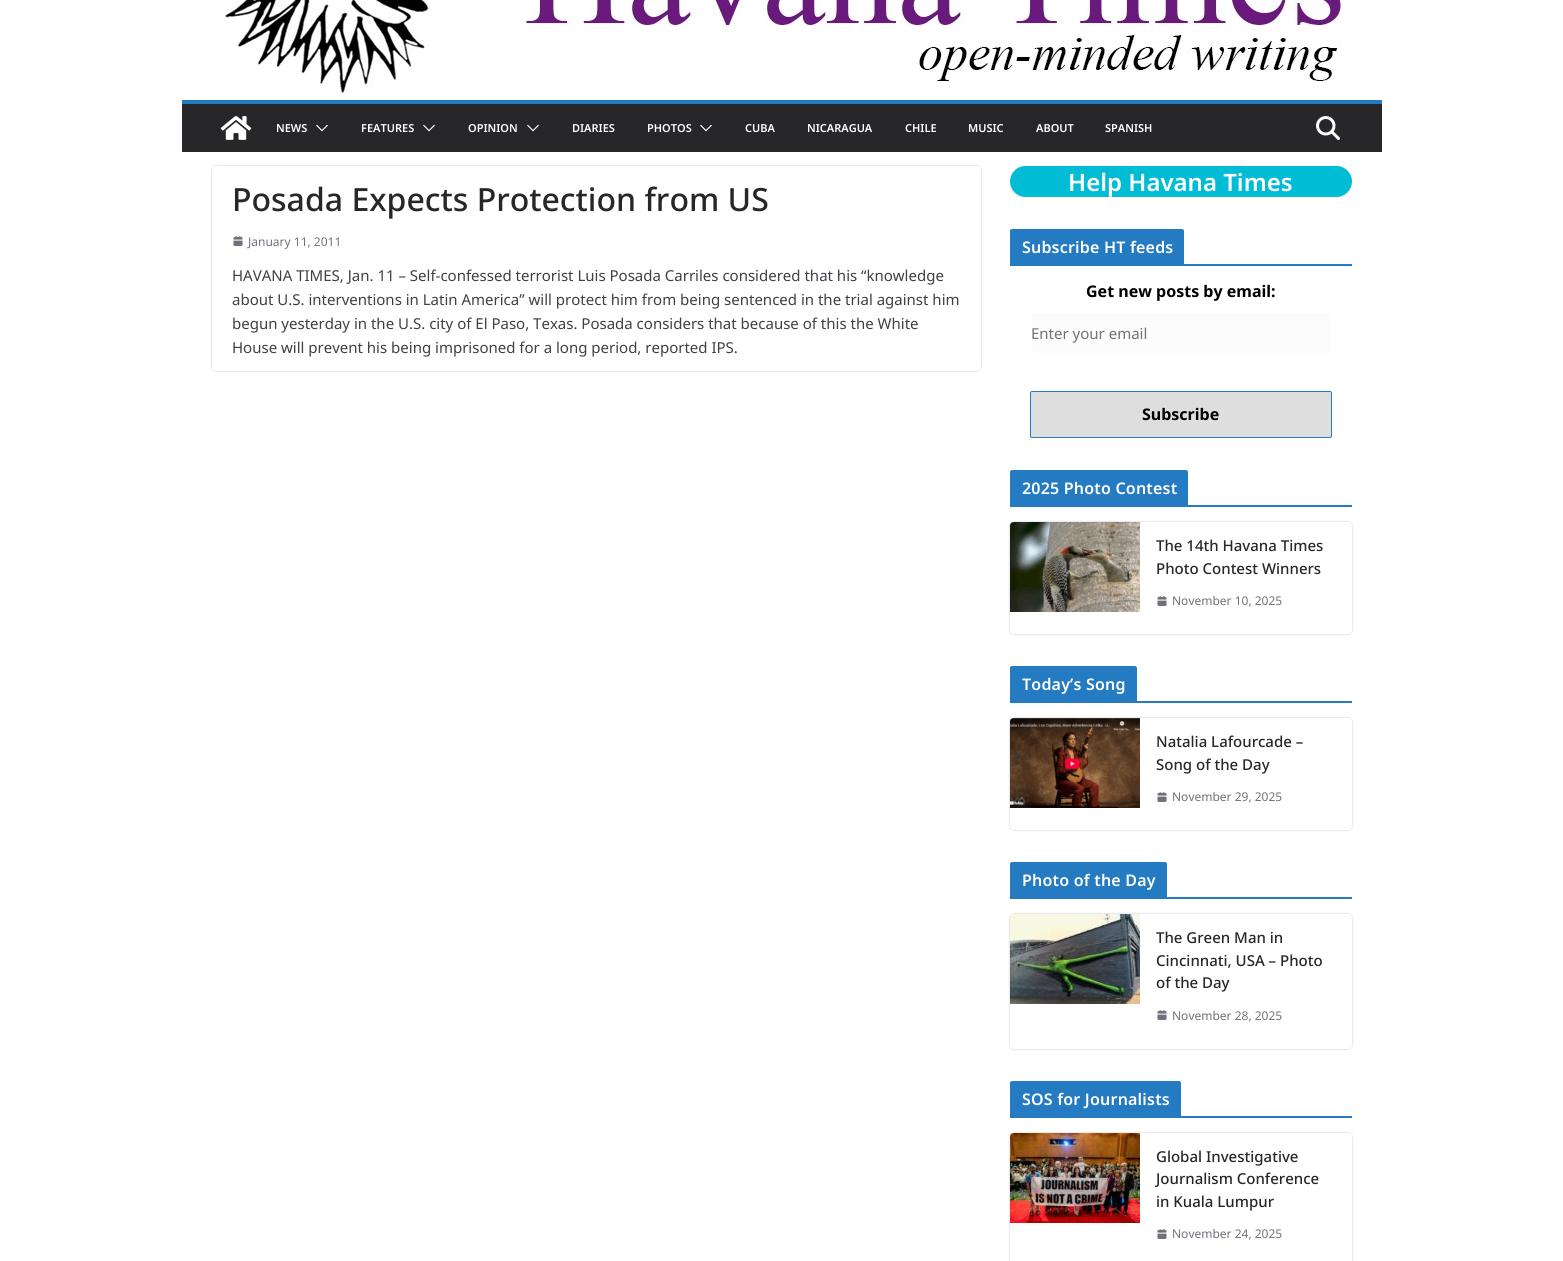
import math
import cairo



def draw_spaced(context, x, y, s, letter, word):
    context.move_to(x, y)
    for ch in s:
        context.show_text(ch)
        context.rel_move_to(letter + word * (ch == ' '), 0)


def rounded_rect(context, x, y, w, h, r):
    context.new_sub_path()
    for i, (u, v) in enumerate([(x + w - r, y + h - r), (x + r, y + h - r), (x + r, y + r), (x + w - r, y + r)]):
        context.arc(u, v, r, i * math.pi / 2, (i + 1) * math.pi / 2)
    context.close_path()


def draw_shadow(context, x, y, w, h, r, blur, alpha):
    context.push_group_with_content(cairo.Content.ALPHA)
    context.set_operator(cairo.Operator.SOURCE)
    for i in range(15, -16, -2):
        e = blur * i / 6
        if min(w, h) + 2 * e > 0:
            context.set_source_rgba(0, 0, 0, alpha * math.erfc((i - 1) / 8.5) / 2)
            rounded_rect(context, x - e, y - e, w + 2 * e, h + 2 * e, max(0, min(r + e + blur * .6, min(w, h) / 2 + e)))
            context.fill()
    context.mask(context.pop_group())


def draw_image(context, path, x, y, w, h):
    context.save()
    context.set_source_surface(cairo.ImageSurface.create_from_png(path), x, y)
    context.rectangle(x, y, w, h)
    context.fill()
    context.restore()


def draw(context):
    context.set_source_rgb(1, 1, 1)
    context.paint()
    draw_image(context, "images/1.png", 223, 0, 1119, 96)
    context.set_source_rgb(39 / 255, 39 / 255, 42 / 255)
    context.rectangle(182, 104, 1200, 48)
    context.fill()
    context.set_source_rgb(37 / 255, 123 / 255, 193 / 255)
    context.rectangle(182, 100, 1200, 4)
    context.fill()
    draw_image(context, "images/2.png", 220, 116, 32, 24)
    draw_image(context, "images/3.png", 316, 124, 12, 8)
    draw_image(context, "images/3.png", 423, 124, 12, 8)
    draw_image(context, "images/3.png", 527, 124, 12, 8)
    draw_image(context, "images/3.png", 700, 124, 12, 8)
    draw_image(context, "images/4.png", 1316, 116, 24, 24)
    context.save()
    context.set_fill_rule(cairo.FillRule.EVEN_ODD)
    context.new_path()
    context.move_to(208, 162)
    context.line_to(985, 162)
    context.line_to(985, 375)
    context.line_to(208, 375)
    context.close_path()
    context.move_to(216, 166)
    context.line_to(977, 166)
    context.curve_to(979, 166, 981, 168, 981, 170)
    context.line_to(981, 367)
    context.curve_to(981, 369, 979, 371, 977, 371)
    context.line_to(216, 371)
    context.curve_to(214, 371, 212, 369, 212, 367)
    context.line_to(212, 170)
    context.curve_to(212, 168, 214, 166, 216, 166)
    context.close_path()
    context.clip()
    context.set_source_rgb(0, 0, 0)
    draw_shadow(context, 212, 166, 769, 205, 4, 1, 0.24)
    context.restore()
    draw_image(context, "images/5.png", 233, 236, 10, 10)
    context.set_source_rgb(0, 188 / 255, 212 / 255)
    rounded_rect(context, 1010, 166, 342, 31, 15.5)
    context.fill()
    context.set_source_rgb(37 / 255, 123 / 255, 193 / 255)
    context.rectangle(1010, 264, 342, 2)
    context.fill()
    context.new_path()
    context.move_to(1012, 229)
    context.line_to(1182, 229)
    context.curve_to(1183, 229, 1184, 230, 1184, 231)
    context.line_to(1184, 264)
    context.line_to(1010, 264)
    context.line_to(1010, 231)
    context.curve_to(1010, 230, 1011, 229, 1012, 229)
    context.close_path()
    context.fill()
    context.set_source_rgb(252 / 255, 252 / 255, 252 / 255)
    rounded_rect(context, 1030.5, 312.5, 301, 41, 3.5)
    context.fill_preserve()
    context.set_source_rgb(1, 1, 1)
    context.set_line_width(1)
    context.stroke()
    context.set_source_rgb(222 / 255, 222 / 255, 222 / 255)
    rounded_rect(context, 1030.5, 391.5, 301, 46, 1.5)
    context.fill_preserve()
    context.set_source_rgb(37 / 255, 123 / 255, 193 / 255)
    context.stroke()
    context.rectangle(1010, 505, 342, 2)
    context.fill()
    context.new_path()
    context.move_to(1012, 470)
    context.line_to(1186, 470)
    context.curve_to(1187, 470, 1188, 471, 1188, 472)
    context.line_to(1188, 505)
    context.line_to(1010, 505)
    context.line_to(1010, 472)
    context.curve_to(1010, 471, 1011, 470, 1012, 470)
    context.close_path()
    context.fill()
    context.save()
    context.set_fill_rule(cairo.FillRule.EVEN_ODD)
    context.new_path()
    context.move_to(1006, 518)
    context.line_to(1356, 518)
    context.line_to(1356, 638)
    context.line_to(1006, 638)
    context.close_path()
    context.move_to(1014, 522)
    context.line_to(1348, 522)
    context.curve_to(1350, 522, 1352, 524, 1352, 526)
    context.line_to(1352, 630)
    context.curve_to(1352, 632, 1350, 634, 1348, 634)
    context.line_to(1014, 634)
    context.curve_to(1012, 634, 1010, 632, 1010, 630)
    context.line_to(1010, 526)
    context.curve_to(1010, 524, 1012, 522, 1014, 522)
    context.close_path()
    context.clip()
    context.set_source_rgb(0, 0, 0)
    draw_shadow(context, 1010, 522, 342, 112, 4, 1, 0.24)
    context.restore()
    draw_image(context, "images/6.png", 1010, 522, 130, 90)
    draw_image(context, "images/5.png", 1157, 596, 10, 10)
    context.rectangle(1010, 701, 342, 2)
    context.fill()
    context.new_path()
    context.move_to(1012, 666)
    context.line_to(1135, 666)
    context.curve_to(1136, 666, 1137, 667, 1137, 668)
    context.line_to(1137, 701)
    context.line_to(1010, 701)
    context.line_to(1010, 668)
    context.curve_to(1010, 667, 1011, 666, 1012, 666)
    context.close_path()
    context.fill()
    context.save()
    context.set_fill_rule(cairo.FillRule.EVEN_ODD)
    context.new_path()
    context.move_to(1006, 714)
    context.line_to(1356, 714)
    context.line_to(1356, 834)
    context.line_to(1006, 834)
    context.close_path()
    context.move_to(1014, 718)
    context.line_to(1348, 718)
    context.curve_to(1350, 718, 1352, 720, 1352, 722)
    context.line_to(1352, 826)
    context.curve_to(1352, 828, 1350, 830, 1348, 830)
    context.line_to(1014, 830)
    context.curve_to(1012, 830, 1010, 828, 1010, 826)
    context.line_to(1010, 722)
    context.curve_to(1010, 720, 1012, 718, 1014, 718)
    context.close_path()
    context.clip()
    context.set_source_rgb(0, 0, 0)
    draw_shadow(context, 1010, 718, 342, 112, 4, 1, 0.24)
    context.restore()
    draw_image(context, "images/7.png", 1010, 718, 130, 90)
    draw_image(context, "images/5.png", 1157, 792, 10, 10)
    context.rectangle(1010, 897, 342, 2)
    context.fill()
    context.new_path()
    context.move_to(1012, 862)
    context.line_to(1165, 862)
    context.curve_to(1166, 862, 1167, 863, 1167, 864)
    context.line_to(1167, 897)
    context.line_to(1010, 897)
    context.line_to(1010, 864)
    context.curve_to(1010, 863, 1011, 862, 1012, 862)
    context.close_path()
    context.fill()
    context.save()
    context.set_fill_rule(cairo.FillRule.EVEN_ODD)
    context.new_path()
    context.move_to(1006, 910)
    context.line_to(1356, 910)
    context.line_to(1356, 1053)
    context.line_to(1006, 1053)
    context.close_path()
    context.move_to(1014, 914)
    context.line_to(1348, 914)
    context.curve_to(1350, 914, 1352, 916, 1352, 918)
    context.line_to(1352, 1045)
    context.curve_to(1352, 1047, 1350, 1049, 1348, 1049)
    context.line_to(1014, 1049)
    context.curve_to(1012, 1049, 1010, 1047, 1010, 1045)
    context.line_to(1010, 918)
    context.curve_to(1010, 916, 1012, 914, 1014, 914)
    context.close_path()
    context.clip()
    context.set_source_rgb(0, 0, 0)
    draw_shadow(context, 1010, 914, 342, 135, 4, 1, 0.24)
    context.restore()
    draw_image(context, "images/8.png", 1010, 914, 130, 90)
    draw_image(context, "images/5.png", 1157, 1010, 10, 10)
    context.rectangle(1010, 1116, 342, 2)
    context.fill()
    context.new_path()
    context.move_to(1012, 1081)
    context.line_to(1179, 1081)
    context.curve_to(1180, 1081, 1181, 1082, 1181, 1083)
    context.line_to(1181, 1116)
    context.line_to(1010, 1116)
    context.line_to(1010, 1083)
    context.curve_to(1010, 1082, 1011, 1081, 1012, 1081)
    context.close_path()
    context.fill()
    context.save()
    context.set_fill_rule(cairo.FillRule.EVEN_ODD)
    context.new_path()
    context.move_to(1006, 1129)
    context.line_to(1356, 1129)
    context.line_to(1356, 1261)
    context.line_to(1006, 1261)
    context.close_path()
    context.move_to(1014, 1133)
    context.line_to(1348, 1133)
    context.curve_to(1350, 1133, 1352, 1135, 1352, 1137)
    context.line_to(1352, 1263)
    context.curve_to(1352, 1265, 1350, 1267, 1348, 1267)
    context.line_to(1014, 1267)
    context.curve_to(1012, 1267, 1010, 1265, 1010, 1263)
    context.line_to(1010, 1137)
    context.curve_to(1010, 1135, 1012, 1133, 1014, 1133)
    context.close_path()
    context.clip()
    context.set_source_rgb(0, 0, 0)
    draw_shadow(context, 1010, 1133, 342, 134, 4, 1, 0.24)
    context.restore()
    draw_image(context, "images/9.png", 1010, 1133, 130, 90)
    draw_image(context, "images/5.png", 1157, 1229, 10, 10)
    context.select_font_face("Noto Sans SemiBold")
    context.set_font_size(11)
    context.set_source_rgb(1, 1, 1)
    context.move_to(276, 132)
    context.show_text("NEWS")
    context.move_to(361, 132)
    context.show_text("FEATURES")
    context.move_to(468, 132)
    context.show_text("OPINION")
    context.move_to(572, 132)
    context.show_text("DIARIES")
    context.move_to(647, 132)
    context.show_text("PHOTOS")
    context.move_to(745, 132)
    context.show_text("CUBA")
    context.move_to(807, 132)
    context.show_text("NICARAGUA")
    context.move_to(905, 132)
    context.show_text("CHILE")
    context.move_to(968, 132)
    context.show_text("MUSIC")
    context.move_to(1036, 132)
    context.show_text("ABOUT")
    context.move_to(1105, 132)
    context.show_text("SPANISH")
    context.select_font_face("Noto Sans Medium")
    context.set_font_size(32)
    context.set_source_rgb(39 / 255, 39 / 255, 42 / 255)
    context.move_to(232, 211)
    context.show_text("Posada Expects Protection from US")
    context.select_font_face("Noto Sans")
    context.set_font_size(12)
    context.set_source_rgb(113 / 255, 113 / 255, 122 / 255)
    context.move_to(248, 246)
    context.show_text("January 11, 2011")
    context.set_font_size(15)
    context.set_source_rgb(63 / 255, 63 / 255, 70 / 255)
    context.move_to(232, 281)
    context.show_text("HAVANA TIMES, Jan. 11 – Self-confessed terrorist Luis Posada Carriles considered that his “knowledge")
    context.move_to(232, 305)
    context.show_text("about U.S. interventions in Latin America” will protect him from being sentenced in the trial against him")
    context.move_to(232, 329)
    context.show_text("begun yesterday in the U.S. city of El Paso, Texas. Posada considers that because of this the White")
    context.move_to(232, 353)
    context.show_text("House will prevent his being imprisoned for a long period, reported IPS.")
    context.select_font_face("Noto Sans SemiBold")
    context.set_font_size(24)
    context.set_source_rgb(1, 1, 1)
    context.move_to(1068, 191)
    context.show_text("Help Havana Times")
    context.set_font_size(16)
    draw_spaced(context, 1022, 253, "Subscribe HT feeds", 0.2, 0)
    context.select_font_face("Noto Sans", cairo.FontSlant.NORMAL, cairo.FontWeight.BOLD)
    context.set_source_rgb(0, 0, 0)
    context.move_to(1086, 297)
    context.show_text("Get new posts by email:")
    context.select_font_face("Noto Sans")
    context.set_font_size(15)
    context.set_source_rgb(113 / 255, 113 / 255, 122 / 255)
    context.move_to(1031, 339)
    context.show_text("Enter your email")
    context.select_font_face("Noto Sans", cairo.FontSlant.NORMAL, cairo.FontWeight.BOLD)
    context.set_font_size(16)
    context.set_source_rgb(0, 0, 0)
    context.move_to(1142, 420)
    context.show_text("Subscribe")
    context.select_font_face("Noto Sans SemiBold")
    context.set_source_rgb(1, 1, 1)
    draw_spaced(context, 1022, 494, "2025 Photo Contest", 0.2, 0)
    context.select_font_face("Noto Sans Medium")
    context.set_font_size(15)
    context.set_source_rgb(39 / 255, 39 / 255, 42 / 255)
    context.move_to(1156, 551)
    context.show_text("The 14th Havana Times")
    context.move_to(1156, 574)
    context.show_text("Photo Contest Winners")
    context.select_font_face("Noto Sans")
    context.set_font_size(12)
    context.set_source_rgb(113 / 255, 113 / 255, 122 / 255)
    context.move_to(1172, 605)
    context.show_text("November 10, 2025")
    context.select_font_face("Noto Sans SemiBold")
    context.set_font_size(16)
    context.set_source_rgb(1, 1, 1)
    draw_spaced(context, 1022, 690, "Today’s Song", 0.2, 0)
    context.select_font_face("Noto Sans Medium")
    context.set_font_size(15)
    context.set_source_rgb(39 / 255, 39 / 255, 42 / 255)
    context.move_to(1156, 747)
    context.show_text("Natalia Lafourcade –")
    context.move_to(1156, 770)
    context.show_text("Song of the Day")
    context.select_font_face("Noto Sans")
    context.set_font_size(12)
    context.set_source_rgb(113 / 255, 113 / 255, 122 / 255)
    context.move_to(1172, 801)
    context.show_text("November 29, 2025")
    context.select_font_face("Noto Sans SemiBold")
    context.set_font_size(16)
    context.set_source_rgb(1, 1, 1)
    draw_spaced(context, 1022, 886, "Photo of the Day", 0.2, 0)
    context.select_font_face("Noto Sans Medium")
    context.set_font_size(15)
    context.set_source_rgb(39 / 255, 39 / 255, 42 / 255)
    context.move_to(1156, 943)
    context.show_text("The Green Man in")
    context.move_to(1156, 966)
    context.show_text("Cincinnati, USA – Photo")
    context.move_to(1156, 988)
    context.show_text("of the Day")
    context.select_font_face("Noto Sans")
    context.set_font_size(12)
    context.set_source_rgb(113 / 255, 113 / 255, 122 / 255)
    context.move_to(1172, 1020)
    context.show_text("November 28, 2025")
    context.select_font_face("Noto Sans SemiBold")
    context.set_font_size(16)
    context.set_source_rgb(1, 1, 1)
    draw_spaced(context, 1022, 1105, "SOS for Journalists", 0.2, 0)
    context.select_font_face("Noto Sans Medium")
    context.set_font_size(15)
    context.set_source_rgb(39 / 255, 39 / 255, 42 / 255)
    context.move_to(1156, 1162)
    context.show_text("Global Investigative")
    context.move_to(1156, 1184)
    context.show_text("Journalism Conference")
    context.move_to(1156, 1207)
    context.show_text("in Kuala Lumpur")
    context.select_font_face("Noto Sans")
    context.set_font_size(12)
    context.set_source_rgb(113 / 255, 113 / 255, 122 / 255)
    context.move_to(1172, 1238)
    context.show_text("November 24, 2025")


surface = cairo.ImageSurface(cairo.Format.RGB24, 1563, 1261)
context = cairo.Context(surface)
options = cairo.FontOptions()
options.set_hint_metrics(cairo.HintMetrics.OFF)
options.set_hint_style(cairo.HintStyle.NONE)
context.set_font_options(options)
context.set_miter_limit(4)
draw(context)
surface.write_to_png("out.png")
